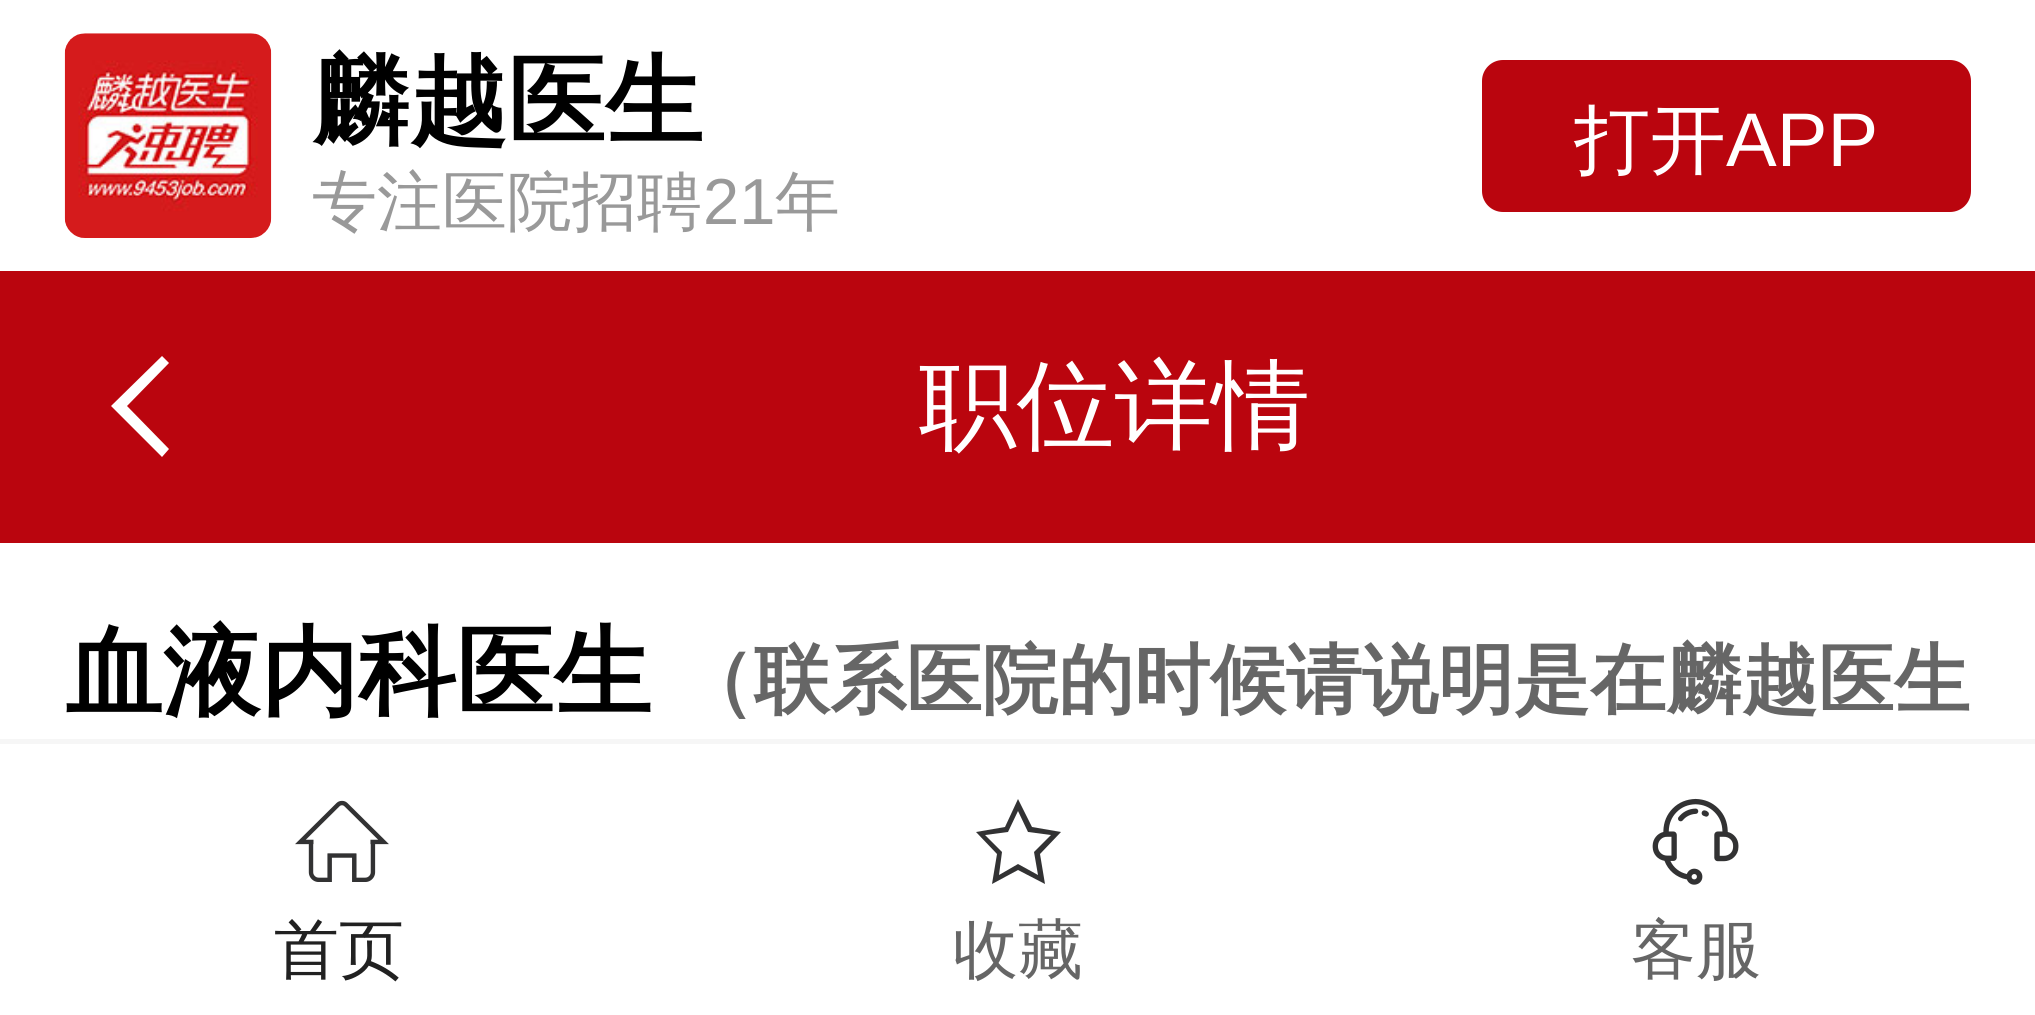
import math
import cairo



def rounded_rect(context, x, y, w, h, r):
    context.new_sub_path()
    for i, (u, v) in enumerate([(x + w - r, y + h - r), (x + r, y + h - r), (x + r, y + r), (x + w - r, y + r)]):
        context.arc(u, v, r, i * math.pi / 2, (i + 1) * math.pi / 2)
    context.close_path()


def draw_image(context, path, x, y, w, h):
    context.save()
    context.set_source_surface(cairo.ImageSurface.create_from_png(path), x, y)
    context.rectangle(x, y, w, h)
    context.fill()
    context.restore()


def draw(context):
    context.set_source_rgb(1, 1, 1)
    context.paint()
    draw_image(context, "images/1.png", 64, 33, 208, 205)
    context.set_source_rgb(186 / 255, 5 / 255, 14 / 255)
    rounded_rect(context, 1482, 60, 489, 152, 21)
    context.fill()
    context.rectangle(0, 271, 2035, 272)
    context.fill()
    context.set_source_rgb(1, 1, 1)
    context.new_path()
    context.move_to(169, 363)
    context.line_to(162, 356)
    context.line_to(111, 406)
    context.line_to(162, 457)
    context.line_to(169, 449)
    context.line_to(127, 406)
    context.close_path()
    context.fill()
    context.set_source_rgb(246 / 255, 246 / 255, 246 / 255)
    context.rectangle(0, 739, 2035, 5)
    context.fill()
    draw_image(context, "images/2.png", 295, 800, 94, 82)
    context.set_source_rgb(50 / 255, 50 / 255, 51 / 255)
    context.new_path()
    context.move_to(1061, 832)
    context.line_to(1032, 827)
    context.line_to(1018, 799)
    context.line_to(1005, 827)
    context.line_to(976, 832)
    context.line_to(997, 854)
    context.line_to(992, 884)
    context.line_to(1018, 870)
    context.line_to(1045, 884)
    context.line_to(1040, 854)
    context.close_path()
    context.move_to(1018, 864)
    context.line_to(999, 875)
    context.line_to(1002, 852)
    context.line_to(985, 835)
    context.line_to(1008, 832)
    context.line_to(1018, 811)
    context.line_to(1028, 832)
    context.line_to(1051, 835)
    context.line_to(1034, 852)
    context.line_to(1038, 875)
    context.close_path()
    context.fill()
    draw_image(context, "images/3.png", 1652, 798, 87, 87)
    context.select_font_face("WenQuanYi Zen Hei", cairo.FontSlant.NORMAL, cairo.FontWeight.BOLD)
    context.set_font_size(97.75)
    context.set_source_rgb(0, 0, 0)
    context.move_to(312, 135)
    context.show_text("麟越医生")
    context.select_font_face("WenQuanYi Zen Hei Medium")
    context.set_font_size(65)
    context.set_source_rgb(153 / 255, 153 / 255, 153 / 255)
    context.move_to(312, 224)
    context.show_text("专注医院招聘")
    context.select_font_face("Liberation Sans")
    context.move_to(703, 224)
    context.show_text("21")
    context.select_font_face("WenQuanYi Zen Hei Medium")
    context.move_to(775, 224)
    context.show_text("年")
    context.set_font_size(76)
    context.set_source_rgb(1, 1, 1)
    context.move_to(1574, 166)
    context.show_text("打开")
    context.select_font_face("Liberation Sans")
    context.move_to(1726, 166)
    context.show_text("APP")
    context.select_font_face("WenQuanYi Zen Hei Medium")
    context.set_font_size(97.75)
    context.move_to(919, 439)
    context.show_text("职位详情")
    context.select_font_face("WenQuanYi Zen Hei", cairo.FontSlant.NORMAL, cairo.FontWeight.BOLD)
    context.set_source_rgb(0, 0, 0)
    context.move_to(65, 706)
    context.show_text("血液内科医生")
    context.set_font_size(76)
    context.set_source_rgb(102 / 255, 102 / 255, 102 / 255)
    context.move_to(678, 706)
    context.show_text("（联系医院的时候请说明是在麟越医生")
    context.select_font_face("WenQuanYi Zen Hei Medium")
    context.set_font_size(65)
    context.set_source_rgb(33 / 255, 33 / 255, 33 / 255)
    context.move_to(274, 972)
    context.show_text("首页")
    context.set_source_rgb(102 / 255, 102 / 255, 102 / 255)
    context.move_to(953, 972)
    context.show_text("收藏")
    context.move_to(1631, 972)
    context.show_text("客服")


surface = cairo.ImageSurface(cairo.Format.RGB24, 2035, 1015)
context = cairo.Context(surface)
options = cairo.FontOptions()
options.set_hint_metrics(cairo.HintMetrics.OFF)
options.set_hint_style(cairo.HintStyle.NONE)
context.set_font_options(options)
context.set_miter_limit(4)
draw(context)
surface.write_to_png("out.png")
